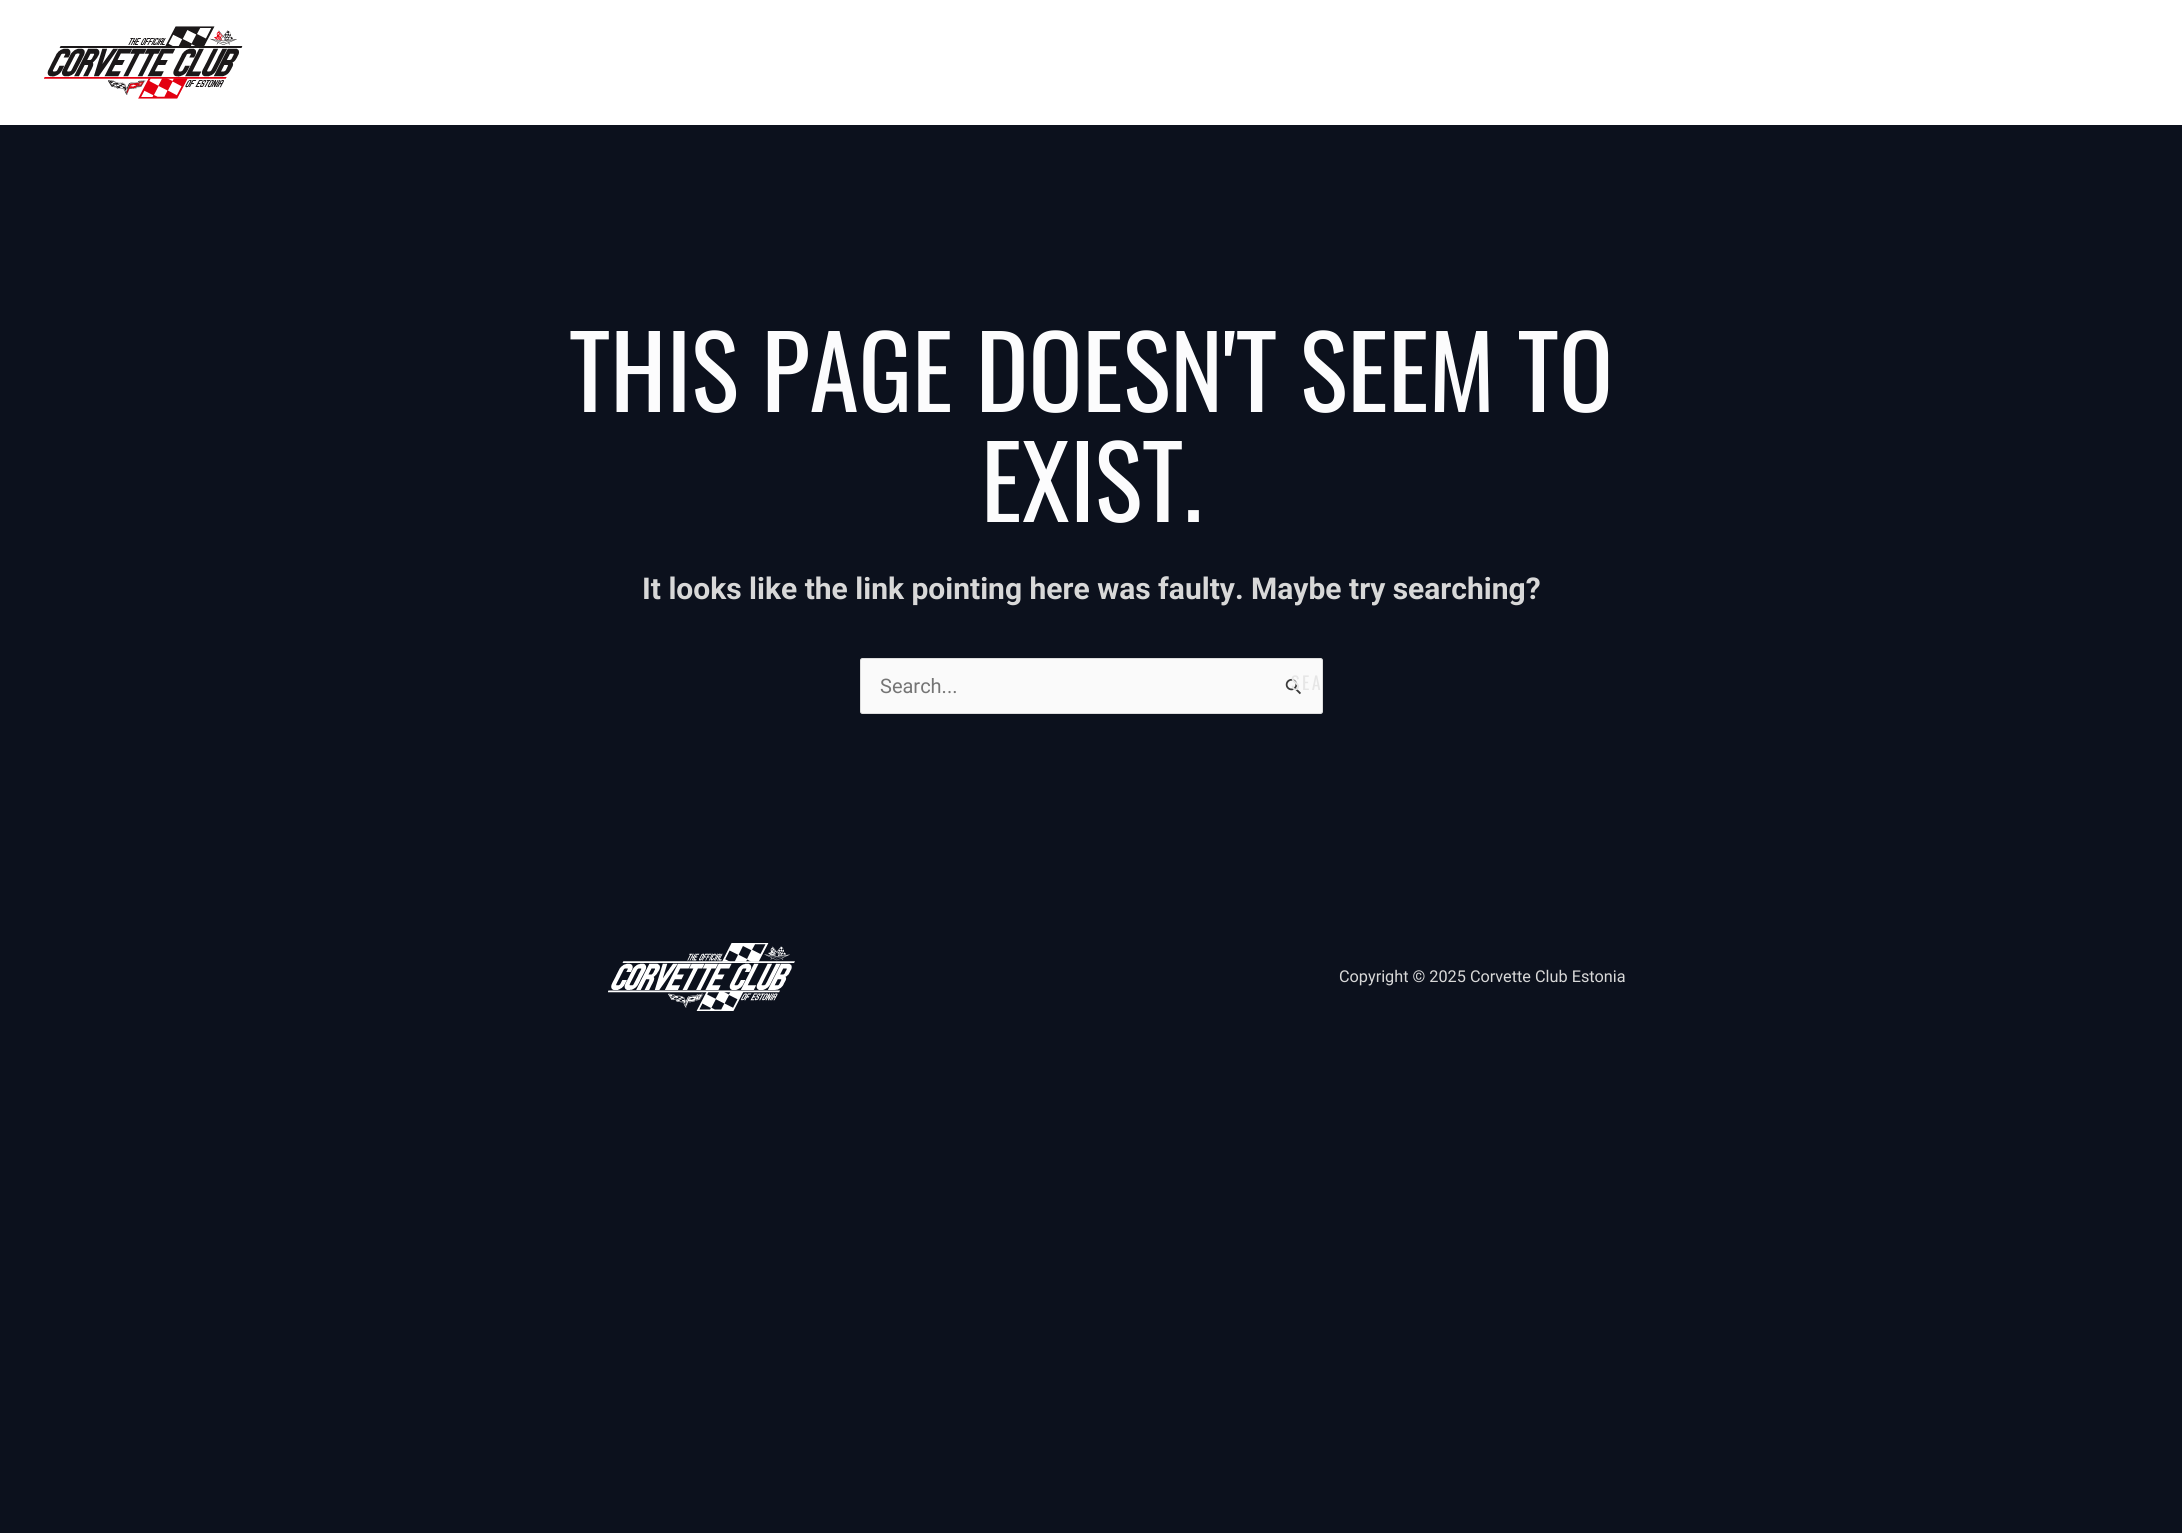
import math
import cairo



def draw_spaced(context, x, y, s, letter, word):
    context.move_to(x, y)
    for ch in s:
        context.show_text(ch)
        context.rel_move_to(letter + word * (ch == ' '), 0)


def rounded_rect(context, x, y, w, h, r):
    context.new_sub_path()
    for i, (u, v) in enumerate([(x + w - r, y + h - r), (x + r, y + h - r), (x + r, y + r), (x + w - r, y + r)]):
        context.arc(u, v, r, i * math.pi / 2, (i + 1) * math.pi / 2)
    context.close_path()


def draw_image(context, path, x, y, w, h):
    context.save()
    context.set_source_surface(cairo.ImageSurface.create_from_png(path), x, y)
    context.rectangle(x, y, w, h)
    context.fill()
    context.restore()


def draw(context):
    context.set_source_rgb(12 / 255, 17 / 255, 29 / 255)
    context.paint()
    context.set_source_rgb(1, 1, 1)
    context.rectangle(0, 0, 2182, 125)
    context.fill()
    draw_image(context, "images/1.png", 44, 26, 199, 73)
    context.set_source_rgb(250 / 255, 250 / 255, 250 / 255)
    rounded_rect(context, 860.5, 658.5, 462, 55, 2)
    context.fill_preserve()
    context.set_source_rgb(221 / 255, 221 / 255, 221 / 255)
    context.set_line_width(1)
    context.stroke()
    draw_image(context, "images/2.png", 1285, 678, 16, 17)
    draw_image(context, "images/3.png", 608, 943, 187, 68)
    context.select_font_face("Oswald")
    context.set_font_size(100)
    context.set_source_rgb(252 / 255, 252 / 255, 253 / 255)
    context.move_to(569, 412)
    context.show_text("THIS PAGE DOESN'T SEEM TO")
    context.move_to(981, 522)
    context.show_text("EXIST.")
    context.select_font_face("Roboto", cairo.FontSlant.NORMAL, cairo.FontWeight.BOLD)
    context.set_font_size(30)
    context.set_source_rgb(216 / 255, 216 / 255, 216 / 255)
    context.move_to(642, 599)
    context.show_text("It looks like the link pointing here was faulty. Maybe try searching?")
    context.select_font_face("Roboto")
    context.set_font_size(20)
    context.set_source_rgb(117 / 255, 117 / 255, 117 / 255)
    context.move_to(880, 693)
    context.show_text("Search...")
    context.select_font_face("Oswald")
    context.set_font_size(18)
    context.set_source_rgb(230 / 255, 230 / 255, 230 / 255)
    draw_spaced(context, 1291, 690, "SEA", 2.5, 0)
    context.select_font_face("Roboto")
    context.set_font_size(16.25)
    context.set_source_rgb(216 / 255, 216 / 255, 216 / 255)
    context.move_to(1339, 982)
    context.show_text("Copyright © 2025 Corvette Club Estonia")


surface = cairo.ImageSurface(cairo.Format.RGB24, 2182, 1533)
context = cairo.Context(surface)
options = cairo.FontOptions()
options.set_hint_metrics(cairo.HintMetrics.OFF)
options.set_hint_style(cairo.HintStyle.NONE)
context.set_font_options(options)
context.set_miter_limit(4)
draw(context)
surface.write_to_png("out.png")
